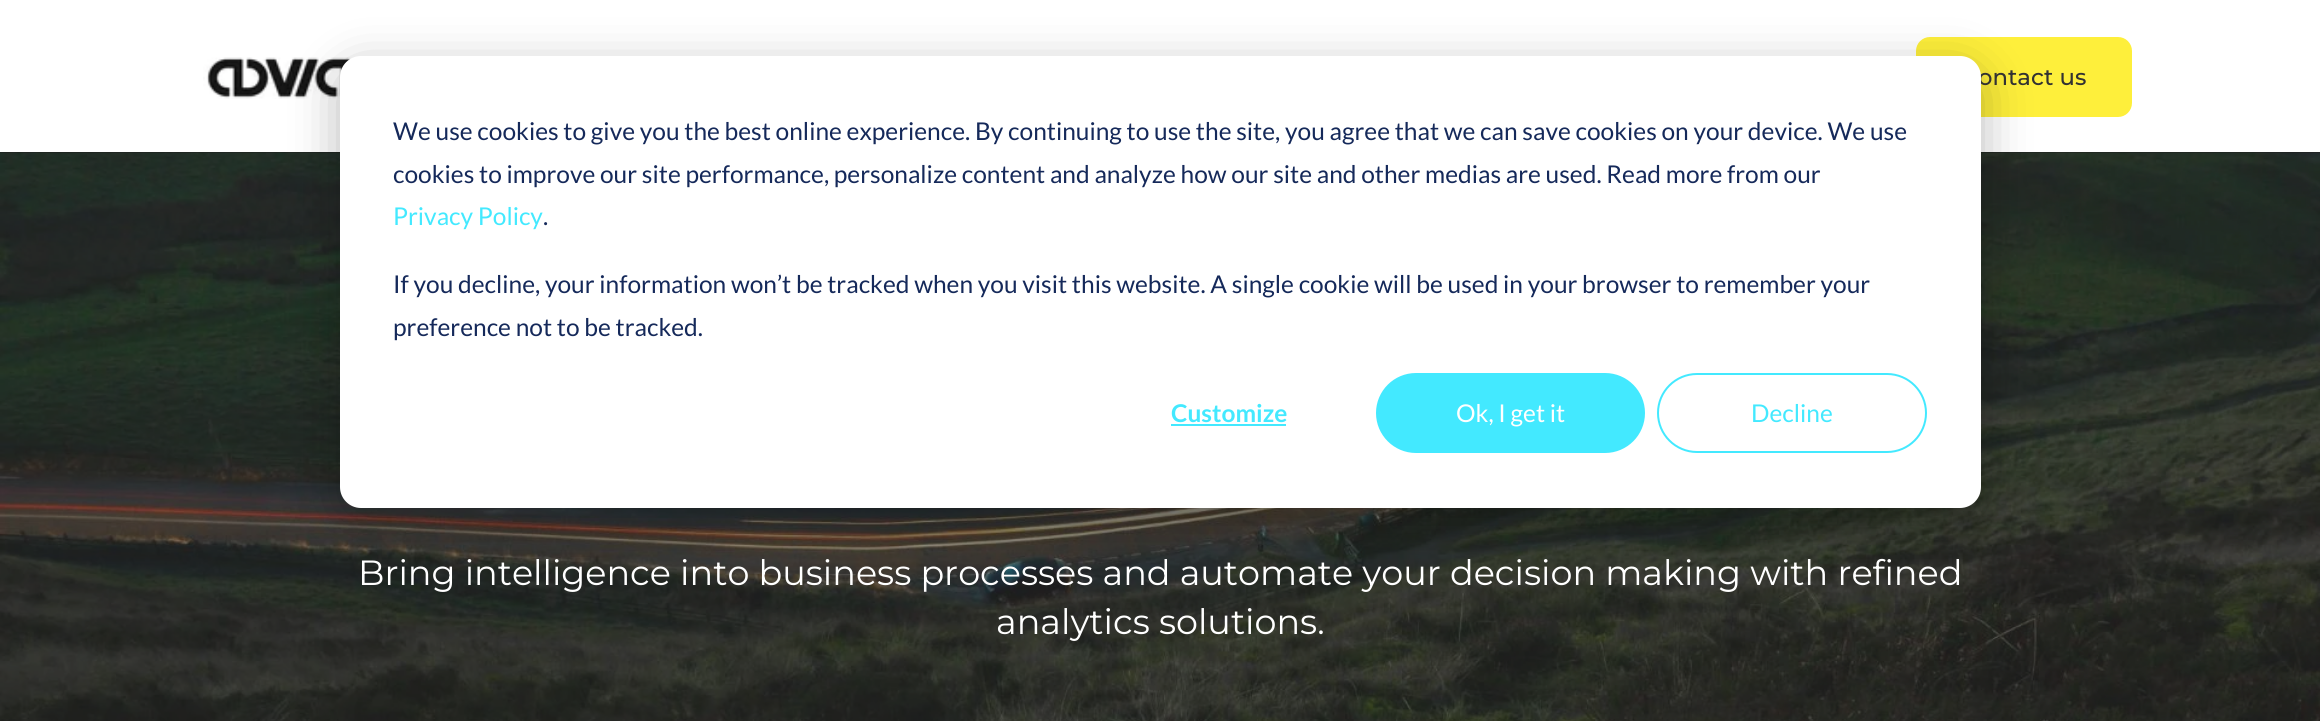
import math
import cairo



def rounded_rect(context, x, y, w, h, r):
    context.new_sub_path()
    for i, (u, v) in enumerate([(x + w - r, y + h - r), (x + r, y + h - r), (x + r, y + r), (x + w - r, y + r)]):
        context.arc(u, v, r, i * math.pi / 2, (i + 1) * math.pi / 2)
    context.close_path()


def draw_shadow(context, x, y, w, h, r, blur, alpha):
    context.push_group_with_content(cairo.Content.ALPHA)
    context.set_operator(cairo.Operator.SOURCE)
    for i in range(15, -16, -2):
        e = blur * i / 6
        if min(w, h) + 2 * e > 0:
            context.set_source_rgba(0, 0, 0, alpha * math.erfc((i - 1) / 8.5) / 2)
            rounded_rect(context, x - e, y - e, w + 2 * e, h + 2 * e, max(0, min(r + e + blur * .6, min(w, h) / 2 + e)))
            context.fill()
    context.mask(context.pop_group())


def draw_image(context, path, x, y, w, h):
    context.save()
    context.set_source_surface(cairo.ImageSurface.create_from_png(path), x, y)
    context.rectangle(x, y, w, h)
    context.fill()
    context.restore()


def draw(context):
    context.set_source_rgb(1, 1, 1)
    context.paint()
    draw_image(context, "images/1.png", 203, 57, 152, 42)
    context.set_source_rgb(254 / 255, 239 / 255, 59 / 255)
    rounded_rect(context, 1917, 38, 214, 78, 13)
    context.fill_preserve()
    context.stroke()
    context.set_source_rgb(28 / 255, 28 / 255, 28 / 255)
    context.rectangle(0, 152, 2320, 1)
    context.fill()
    draw_image(context, "images/2.png", 0, 152, 2320, 569)
    context.set_source_rgb(0, 0, 0)
    draw_shadow(context, 340, 70, 1641, 452, 21, 24.5, 0.28)
    context.select_font_face("Montserrat Medium")
    context.set_font_size(22.75)
    context.set_source_rgb(50 / 255, 50 / 255, 50 / 255)
    context.move_to(1978, 85)
    context.show_text("ontact us")
    context.set_source_rgb(1, 1, 1)
    rounded_rect(context, 340, 56, 1641, 452, 21)
    context.fill()
    context.select_font_face("Lato")
    context.set_font_size(24.5)
    context.set_source_rgb(21 / 255, 41 / 255, 90 / 255)
    context.move_to(393, 140)
    context.show_text("We use cookies to give you the best online experience. By continuing to use the site, you agree that we can save cookies on your device. We use")
    context.move_to(393, 183)
    context.show_text("cookies to improve our site performance, personalize content and analyze how our site and other medias are used. Read more from our")
    context.set_source_rgb(67 / 255, 233 / 255, 1)
    context.move_to(393, 225)
    context.show_text("Privacy Policy")
    context.set_source_rgb(21 / 255, 41 / 255, 90 / 255)
    context.move_to(543, 225)
    context.show_text(".")
    context.move_to(393, 293)
    context.show_text("If you decline, your information won’t be tracked when you visit this website. A single cookie will be used in your browser to remember your")
    context.move_to(393, 336)
    context.show_text("preference not to be tracked.")
    context.select_font_face("Lato", cairo.FontSlant.NORMAL, cairo.FontWeight.BOLD)
    context.set_source_rgb(67 / 255, 233 / 255, 1)
    context.move_to(1171, 422)
    context.show_text("Customize")
    context.rectangle(1171, 424, 115, 2)
    context.fill()
    rounded_rect(context, 1377, 374, 267, 78, 39)
    context.fill_preserve()
    context.stroke()
    context.select_font_face("Lato")
    context.set_source_rgb(1, 1, 1)
    context.move_to(1456, 422)
    context.show_text("Ok, I get it")
    rounded_rect(context, 1658, 374, 268, 78, 39)
    context.set_source_rgb(67 / 255, 233 / 255, 1)
    context.stroke()
    context.move_to(1751, 422)
    context.show_text("Decline")
    context.select_font_face("Montserrat")
    context.set_font_size(35)
    context.set_source_rgb(1, 1, 1)
    context.move_to(358, 585)
    context.show_text("Bring intelligence into business processes and automate your decision making with refined")
    context.move_to(996, 634)
    context.show_text("analytics solutions.")


surface = cairo.ImageSurface(cairo.Format.RGB24, 2320, 721)
context = cairo.Context(surface)
options = cairo.FontOptions()
options.set_hint_metrics(cairo.HintMetrics.OFF)
options.set_hint_style(cairo.HintStyle.NONE)
context.set_font_options(options)
context.set_miter_limit(4)
draw(context)
surface.write_to_png("out.png")
